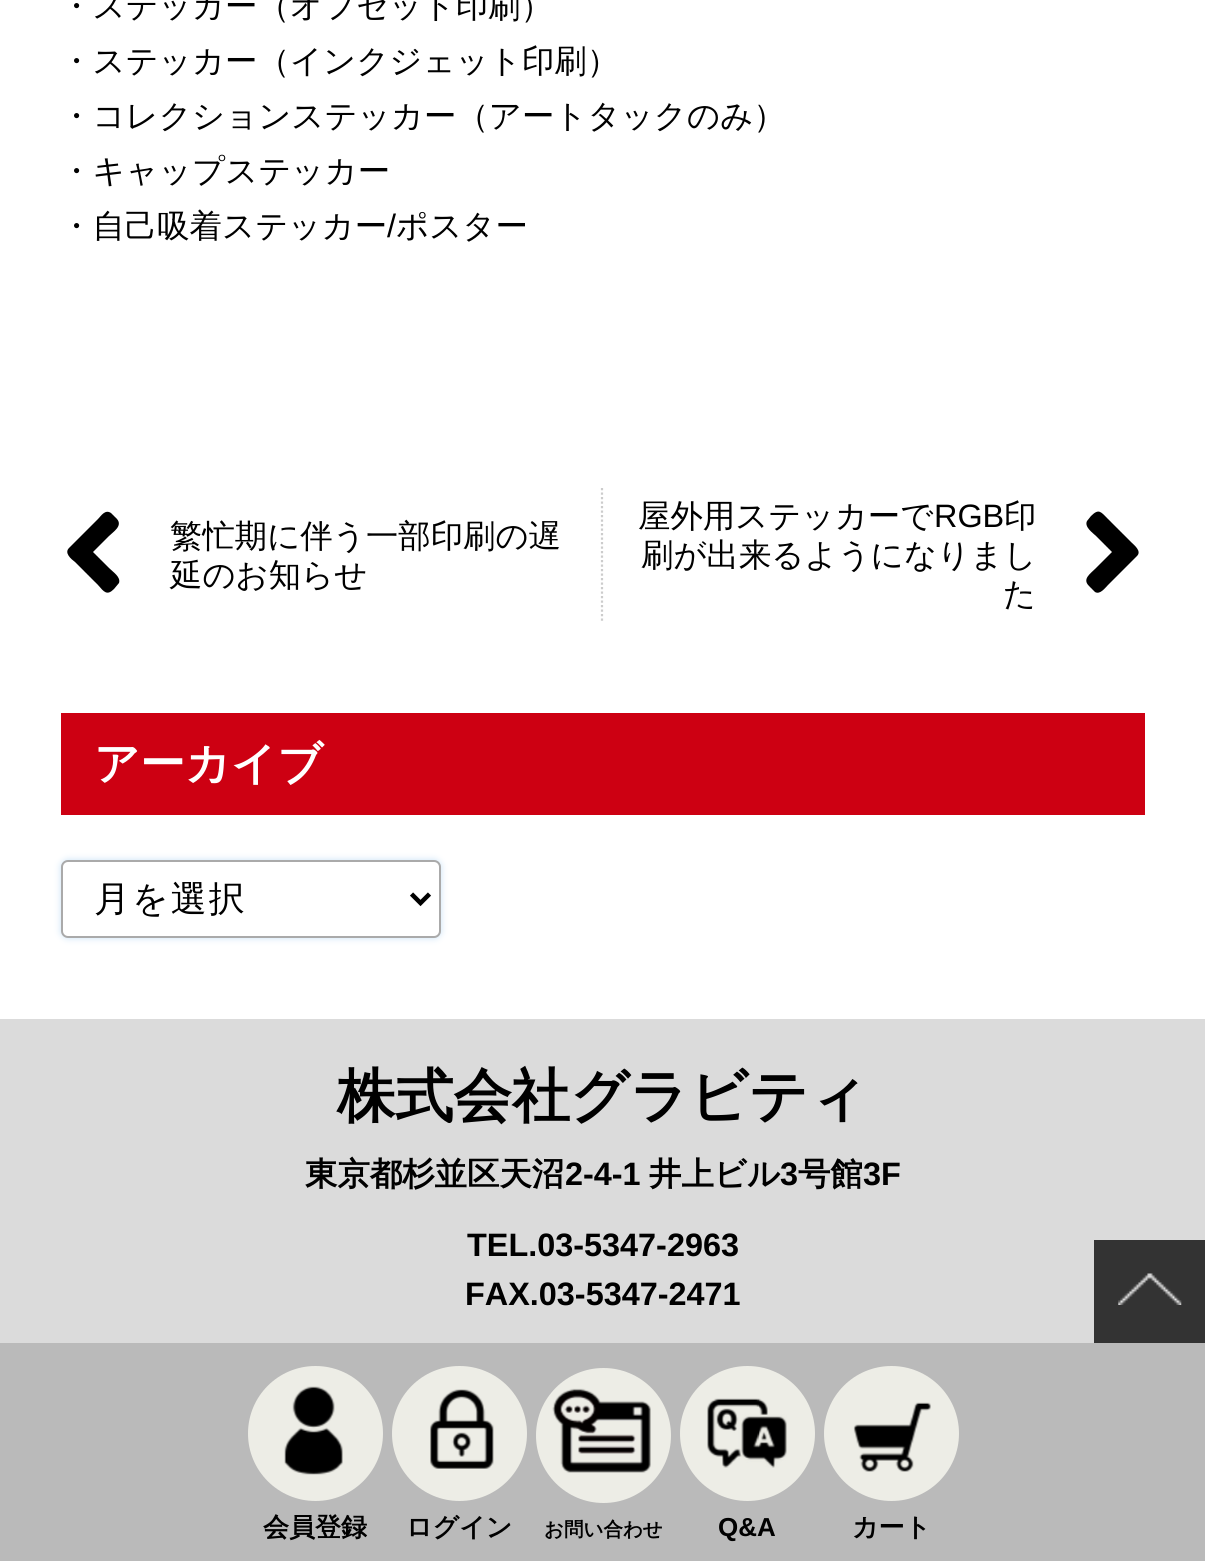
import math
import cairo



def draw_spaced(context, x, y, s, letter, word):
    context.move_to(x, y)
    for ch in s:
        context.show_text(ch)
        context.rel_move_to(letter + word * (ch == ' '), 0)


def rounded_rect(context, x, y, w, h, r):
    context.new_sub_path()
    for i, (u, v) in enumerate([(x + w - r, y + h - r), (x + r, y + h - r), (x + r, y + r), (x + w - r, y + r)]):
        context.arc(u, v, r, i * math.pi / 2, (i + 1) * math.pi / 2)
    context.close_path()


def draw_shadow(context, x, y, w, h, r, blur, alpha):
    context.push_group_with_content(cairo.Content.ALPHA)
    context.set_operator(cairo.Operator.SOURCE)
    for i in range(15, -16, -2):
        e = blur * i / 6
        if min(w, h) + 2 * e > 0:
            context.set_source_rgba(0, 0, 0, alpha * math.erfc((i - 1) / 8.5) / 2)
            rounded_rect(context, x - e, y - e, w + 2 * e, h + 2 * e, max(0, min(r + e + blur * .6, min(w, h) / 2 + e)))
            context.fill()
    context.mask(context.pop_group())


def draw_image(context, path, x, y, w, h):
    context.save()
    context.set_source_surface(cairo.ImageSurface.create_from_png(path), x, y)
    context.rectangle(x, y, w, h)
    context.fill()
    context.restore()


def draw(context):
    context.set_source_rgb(1, 1, 1)
    context.paint()
    context.new_path()
    context.move_to(602, 488)
    context.line_to(602, 623)
    context.set_source_rgb(204 / 255, 204 / 255, 204 / 255)
    context.set_line_width(2.2)
    context.set_dash([2.25, 2.25])
    context.stroke()
    context.set_source_rgb(0, 0, 0)
    context.new_path()
    context.move_to(69, 548)
    context.line_to(98, 519)
    context.curve_to(101, 516, 105, 509, 111, 513)
    context.line_to(117, 519)
    context.curve_to(123, 526, 113, 532, 109, 536)
    context.line_to(93, 552)
    context.line_to(109, 568)
    context.curve_to(113, 572, 121, 577, 119, 583)
    context.line_to(114, 589)
    context.curve_to(107, 596, 104, 592, 98, 585)
    context.line_to(75, 562)
    context.curve_to(71, 559, 64, 553, 69, 548)
    context.close_path()
    context.fill()
    context.new_path()
    context.move_to(1137, 556)
    context.line_to(1108, 585)
    context.curve_to(1105, 588, 1100, 595, 1095, 592)
    context.line_to(1089, 586)
    context.curve_to(1082, 579, 1090, 574, 1096, 568)
    context.line_to(1112, 552)
    context.line_to(1096, 536)
    context.curve_to(1093, 533, 1084, 527, 1087, 521)
    context.line_to(1091, 516)
    context.curve_to(1099, 508, 1101, 512, 1108, 519)
    context.line_to(1131, 542)
    context.curve_to(1134, 545, 1142, 551, 1137, 556)
    context.close_path()
    context.fill()
    context.set_source_rgb(205 / 255, 0, 18 / 255)
    context.rectangle(61, 713, 1084, 102)
    context.fill()
    context.set_source_rgb(201 / 255, 226 / 255, 246 / 255)
    draw_shadow(context, 61, 860, 380, 78, 7, 3.5, 1)
    context.set_source_rgb(1, 1, 1)
    rounded_rect(context, 62, 861, 378, 76, 6)
    context.fill_preserve()
    context.set_source_rgb(170 / 255, 170 / 255, 170 / 255)
    context.set_line_width(2)
    context.set_dash([])
    context.stroke()
    context.new_path()
    context.move_to(411.5, 894)
    context.line_to(420.5, 903)
    context.line_to(429.5, 894)
    context.set_source_rgb(0, 0, 0)
    context.set_line_width(4.5)
    context.stroke()
    context.set_source_rgb(219 / 255, 219 / 255, 219 / 255)
    context.rectangle(0, 1019, 1205, 324)
    context.fill()
    context.set_source_rgb(51 / 255, 51 / 255, 51 / 255)
    context.rectangle(1094, 1240, 111, 103)
    context.fill()
    draw_image(context, "images/1.png", 1118, 1273, 64, 32)
    context.set_source_rgb(186 / 255, 186 / 255, 186 / 255)
    context.rectangle(0, 1343, 1205, 218)
    context.fill()
    context.set_source_rgb(237 / 255, 237 / 255, 230 / 255)
    context.arc(315.5, 1433.5, 67.5, 0, 2 * math.pi)
    context.fill()
    draw_image(context, "images/2.png", 284, 1386, 59, 89)
    context.arc(459.5, 1433.5, 67.5, 0, 2 * math.pi)
    context.fill()
    draw_image(context, "images/3.png", 430, 1389, 64, 80)
    context.arc(603.5, 1435.5, 67.5, 0, 2 * math.pi)
    context.fill()
    draw_image(context, "images/4.png", 552, 1388, 99, 85)
    context.arc(747.5, 1433.5, 67.5, 0, 2 * math.pi)
    context.fill()
    draw_image(context, "images/5.png", 707, 1398, 80, 70)
    context.arc(891.5, 1433.5, 67.5, 0, 2 * math.pi)
    context.fill()
    draw_image(context, "images/6.png", 853, 1402, 78, 70)
    context.select_font_face("WenQuanYi Zen Hei Medium")
    context.set_font_size(32.4)
    context.set_source_rgb(0, 0, 0)
    context.move_to(60, 17)
    context.show_text("・ステッカー（オフセット印刷）")
    context.move_to(60, 72)
    context.show_text("・ステッカー（インクジェット印刷）")
    context.move_to(60, 127)
    context.show_text("・コレクションステッカー（アートタックのみ）")
    context.move_to(60, 182)
    context.show_text("・キャップステッカー")
    context.move_to(60, 237)
    context.show_text("・自己吸着ステッカー")
    context.select_font_face("Liberation Sans")
    context.move_to(387, 237)
    context.show_text("/")
    context.select_font_face("WenQuanYi Zen Hei Medium")
    context.move_to(396, 237)
    context.show_text("ポスター")
    context.move_to(170, 547)
    context.show_text("繁忙期に伴う一部印刷の遅")
    context.move_to(170, 586)
    context.show_text("延のお知らせ")
    context.move_to(638, 527)
    context.show_text("屋外用ステッカーで")
    context.select_font_face("Liberation Sans")
    context.move_to(934, 527)
    context.show_text("RGB")
    context.select_font_face("WenQuanYi Zen Hei Medium")
    context.move_to(1004, 527)
    context.show_text("印")
    context.move_to(641, 566)
    context.show_text("刷が出来るようになりまし")
    context.move_to(1003, 605)
    context.show_text("た")
    context.select_font_face("WenQuanYi Zen Hei", cairo.FontSlant.NORMAL, cairo.FontWeight.BOLD)
    context.set_font_size(45)
    context.set_source_rgb(1, 1, 1)
    context.move_to(94, 779)
    context.show_text("アーカイブ")
    context.select_font_face("WenQuanYi Zen Hei Medium")
    context.set_font_size(36)
    context.set_source_rgb(0, 0, 0)
    draw_spaced(context, 94, 911, "月を選択", 2, 0)
    context.select_font_face("WenQuanYi Zen Hei", cairo.FontSlant.NORMAL, cairo.FontWeight.BOLD)
    context.set_font_size(58.25)
    context.move_to(337, 1116)
    context.show_text("株式会社グラビティ")
    context.set_font_size(32.4)
    context.move_to(305, 1185)
    context.show_text("東京都杉並区天沼")
    context.select_font_face("Liberation Sans", cairo.FontSlant.NORMAL, cairo.FontWeight.BOLD)
    context.move_to(565, 1185)
    context.show_text("2-4-1")
    context.select_font_face("WenQuanYi Zen Hei", cairo.FontSlant.NORMAL, cairo.FontWeight.BOLD)
    context.move_to(649, 1185)
    context.show_text("井上ビル")
    context.select_font_face("Liberation Sans", cairo.FontSlant.NORMAL, cairo.FontWeight.BOLD)
    context.move_to(780, 1185)
    context.show_text("3")
    context.select_font_face("WenQuanYi Zen Hei", cairo.FontSlant.NORMAL, cairo.FontWeight.BOLD)
    context.move_to(798, 1185)
    context.show_text("号館")
    context.select_font_face("Liberation Sans", cairo.FontSlant.NORMAL, cairo.FontWeight.BOLD)
    context.move_to(863, 1185)
    context.show_text("3F")
    context.move_to(467, 1256)
    context.show_text("TEL.03-5347-2963")
    context.move_to(465, 1305)
    context.show_text("FAX.03-5347-2471")
    context.select_font_face("WenQuanYi Zen Hei", cairo.FontSlant.NORMAL, cairo.FontWeight.BOLD)
    context.set_font_size(26)
    context.move_to(263, 1536)
    context.show_text("会員登録")
    context.move_to(406, 1536)
    context.show_text("ログイン")
    context.set_font_size(19.5)
    context.move_to(544, 1536)
    context.show_text("お問い合わせ")
    context.select_font_face("Liberation Sans", cairo.FontSlant.NORMAL, cairo.FontWeight.BOLD)
    context.set_font_size(26)
    context.move_to(718, 1536)
    context.show_text("Q&A")
    context.select_font_face("WenQuanYi Zen Hei", cairo.FontSlant.NORMAL, cairo.FontWeight.BOLD)
    context.move_to(852, 1536)
    context.show_text("カート")


surface = cairo.ImageSurface(cairo.Format.RGB24, 1205, 1561)
context = cairo.Context(surface)
options = cairo.FontOptions()
options.set_hint_metrics(cairo.HintMetrics.OFF)
options.set_hint_style(cairo.HintStyle.NONE)
context.set_font_options(options)
context.set_miter_limit(4)
draw(context)
surface.write_to_png("out.png")
